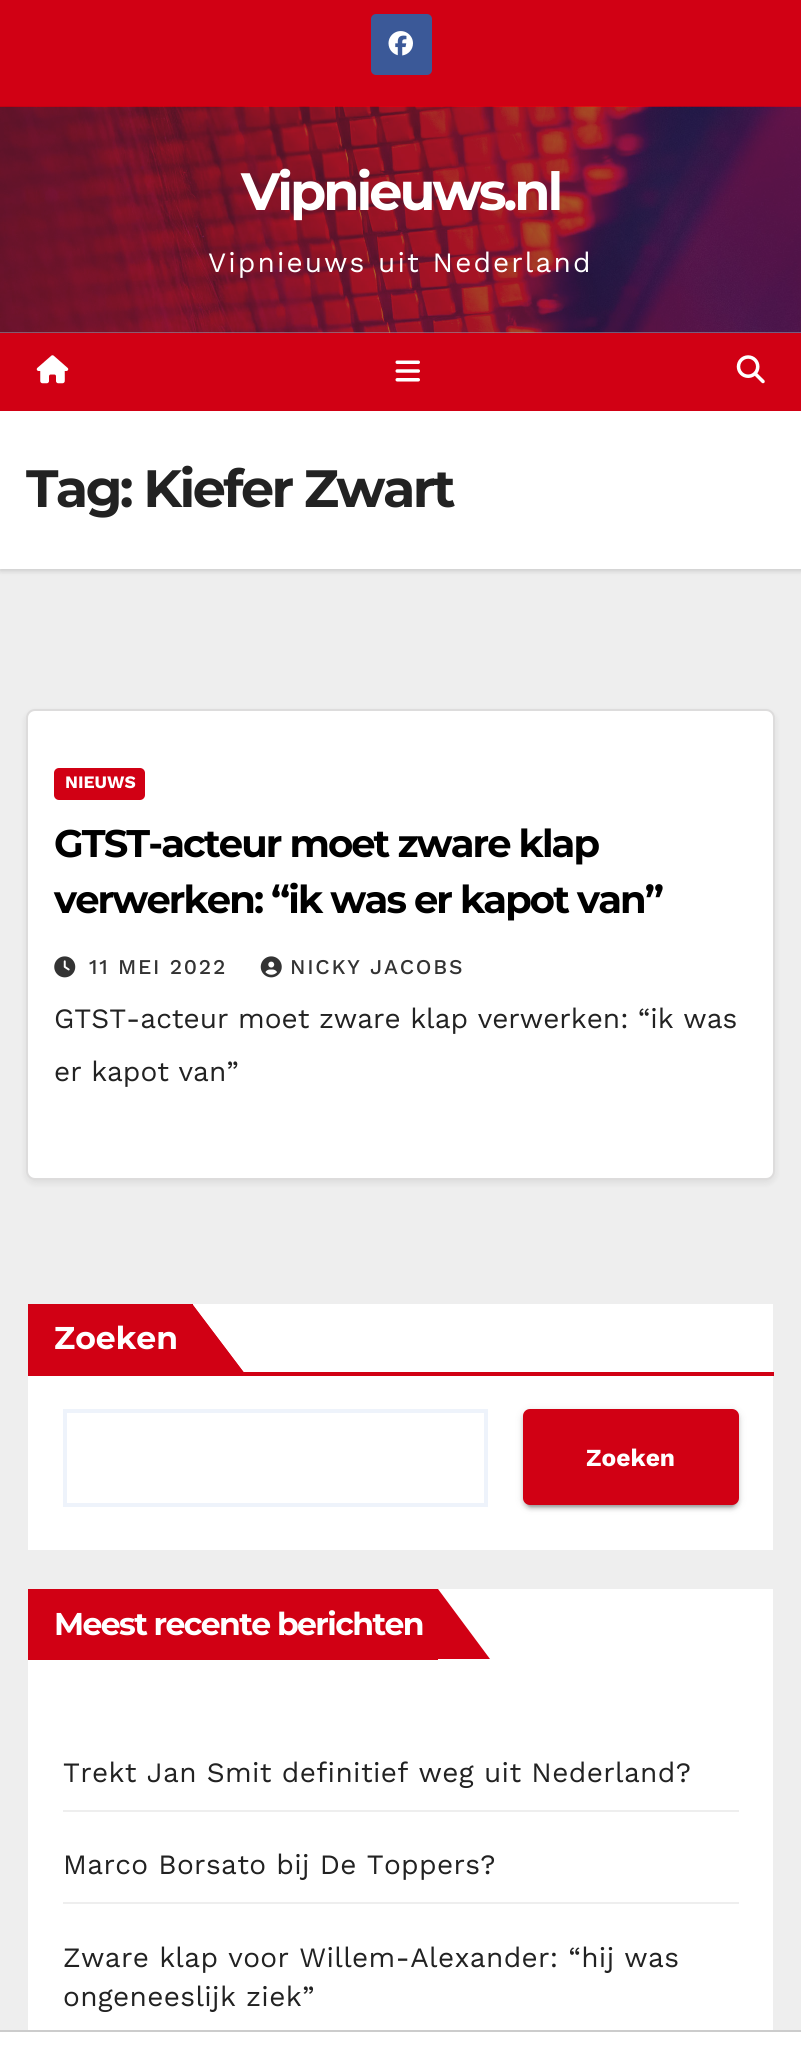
import math
import cairo



def draw_spaced(context, x, y, s, letter, word):
    context.move_to(x, y)
    for ch in s:
        context.show_text(ch)
        context.rel_move_to(letter + word * (ch == ' '), 0)


def rounded_rect(context, x, y, w, h, r):
    context.new_sub_path()
    for i, (u, v) in enumerate([(x + w - r, y + h - r), (x + r, y + h - r), (x + r, y + r), (x + w - r, y + r)]):
        context.arc(u, v, r, i * math.pi / 2, (i + 1) * math.pi / 2)
    context.close_path()


def draw_shadow(context, x, y, w, h, r, blur, alpha):
    context.push_group_with_content(cairo.Content.ALPHA)
    context.set_operator(cairo.Operator.SOURCE)
    for i in range(15, -16, -2):
        e = blur * i / 6
        if min(w, h) + 2 * e > 0:
            context.set_source_rgba(0, 0, 0, alpha * math.erfc((i - 1) / 8.5) / 2)
            rounded_rect(context, x - e, y - e, w + 2 * e, h + 2 * e, max(0, min(r + e + blur * .6, min(w, h) / 2 + e)))
            context.fill()
    context.mask(context.pop_group())


def draw_image(context, path, x, y, w, h):
    context.save()
    context.set_source_surface(cairo.ImageSurface.create_from_png(path), x, y)
    context.rectangle(x, y, w, h)
    context.fill()
    context.restore()


def draw(context):
    context.set_source_rgb(238 / 255, 238 / 255, 238 / 255)
    context.paint()
    context.set_source_rgb(156 / 255, 162 / 255, 179 / 255)
    context.rectangle(0, 332, 801, 1)
    context.fill()
    context.set_source_rgb(209 / 255, 0, 20 / 255)
    context.rectangle(0, 0, 801, 107)
    context.fill()
    context.set_source_rgb(59 / 255, 89 / 255, 152 / 255)
    rounded_rect(context, 371, 14, 61, 61, 5)
    context.fill()
    draw_image(context, "images/1.png", 388, 31, 25, 25)
    draw_image(context, "images/2.png", 0, 106, 801, 227)
    context.set_source_rgb(0, 0, 0)
    draw_shadow(context, 0, 413, 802, 158, 0, 2.5, 0.15)
    context.set_source_rgb(209 / 255, 0, 20 / 255)
    context.rectangle(0, 333, 801, 78)
    context.fill()
    draw_image(context, "images/3.png", 36, 355, 33, 29)
    draw_image(context, "images/4.png", 395, 360, 25, 22)
    draw_image(context, "images/5.png", 736, 355, 29, 29)
    context.set_source_rgb(1, 1, 1)
    context.rectangle(0, 411, 801, 158)
    context.fill()
    context.set_source_rgb(0, 0, 0)
    draw_shadow(context, 26, 712, 749, 471, 9, 3.5, 0.08)
    context.set_source_rgb(1, 1, 1)
    rounded_rect(context, 27, 710, 747, 469, 8)
    context.fill_preserve()
    context.set_source_rgb(221 / 255, 220 / 255, 220 / 255)
    context.stroke()
    context.set_source_rgb(209 / 255, 0, 20 / 255)
    rounded_rect(context, 54, 768, 91, 32, 5)
    context.fill()
    draw_image(context, "images/6.png", 54, 956, 22, 22)
    draw_image(context, "images/7.png", 260, 956, 22, 22)
    context.set_source_rgb(1, 1, 1)
    context.rectangle(28, 1304, 745, 246)
    context.fill()
    context.set_source_rgb(209 / 255, 0, 20 / 255)
    context.rectangle(28, 1304, 165, 68)
    context.fill()
    context.new_path()
    context.move_to(193, 1305)
    context.line_to(193, 1374)
    context.line_to(245, 1374)
    context.close_path()
    context.fill()
    context.new_path()
    context.move_to(192, 1304)
    context.line_to(192, 1374)
    context.line_to(245, 1374)
    context.close_path()
    context.fill()
    context.rectangle(28, 1372, 746, 4)
    context.fill()
    context.rectangle(65, 1411, 421, 94)
    context.set_source_rgb(238 / 255, 243 / 255, 251 / 255)
    context.set_line_width(4)
    context.stroke()
    context.set_source_rgb(0, 0, 0)
    draw_shadow(context, 523, 1411, 216, 96, 7, 4.5, 0.12)
    draw_shadow(context, 527, 1418, 208, 89, 4, 1, 0.2)
    draw_shadow(context, 523, 1412, 216, 97, 7, 2, 0.14)
    context.set_source_rgb(209 / 255, 0, 20 / 255)
    rounded_rect(context, 524, 1410, 214, 94, 6)
    context.fill_preserve()
    context.set_line_width(2)
    context.stroke()
    context.set_source_rgb(1, 1, 1)
    context.rectangle(28, 1589, 745, 441)
    context.fill()
    context.set_source_rgb(209 / 255, 0, 20 / 255)
    context.rectangle(28, 1589, 410, 71)
    context.fill()
    context.new_path()
    context.move_to(438, 1659)
    context.line_to(490, 1659)
    context.line_to(438, 1589)
    context.close_path()
    context.fill()
    context.set_source_rgb(238 / 255, 238 / 255, 238 / 255)
    context.rectangle(63, 1810, 676, 2)
    context.fill()
    context.rectangle(63, 1902, 676, 2)
    context.fill()
    context.set_source_rgb(1, 1, 1)
    context.rectangle(0, 2032, 801, 17)
    context.fill()
    context.set_source_rgb(204 / 255, 204 / 255, 204 / 255)
    context.rectangle(0, 2030, 801, 2)
    context.fill()
    context.select_font_face("Montserrat", cairo.FontSlant.NORMAL, cairo.FontWeight.BOLD)
    context.set_font_size(52.5)
    context.set_source_rgb(1, 1, 1)
    draw_spaced(context, 241, 210, "Vipnieuws.nl", -3, 0)
    context.select_font_face("Work Sans")
    context.set_font_size(28)
    draw_spaced(context, 208, 272, "Vipnieuws uit Nederland", 2.1, 0)
    context.select_font_face("Montserrat", cairo.FontSlant.NORMAL, cairo.FontWeight.BOLD)
    context.set_font_size(52.5)
    context.set_source_rgb(34 / 255, 34 / 255, 34 / 255)
    draw_spaced(context, 26, 507, "Tag: Kiefer Zwart", -2.6, 0)
    context.select_font_face("Work Sans", cairo.FontSlant.NORMAL, cairo.FontWeight.BOLD)
    context.set_font_size(17.5)
    context.set_source_rgb(1, 1, 1)
    context.move_to(65, 788)
    context.show_text("NIEUWS")
    context.select_font_face("Montserrat", cairo.FontSlant.NORMAL, cairo.FontWeight.BOLD)
    context.set_font_size(38.5)
    context.set_source_rgb(0, 0, 0)
    draw_spaced(context, 54, 857, "GTST-acteur moet zware klap", -1.9, 0)
    draw_spaced(context, 54, 913, "verwerken: “ik was er kapot van”", -1.9, 0)
    context.select_font_face("Work Sans Medium")
    context.set_font_size(21)
    context.set_source_rgb(51 / 255, 51 / 255, 51 / 255)
    draw_spaced(context, 89, 974, "11 MEI 2022", 1.75, 0)
    draw_spaced(context, 290, 974, "NICKY JACOBS", 1.75, 0)
    context.select_font_face("Work Sans")
    context.set_font_size(28)
    context.set_source_rgb(34 / 255, 34 / 255, 34 / 255)
    context.move_to(54, 1028)
    context.show_text("GTST-acteur moet zware klap verwerken: “ik was")
    context.move_to(54, 1081)
    context.show_text("er kapot van”")
    context.select_font_face("Montserrat", cairo.FontSlant.NORMAL, cairo.FontWeight.BOLD)
    context.set_font_size(31.5)
    context.set_source_rgb(1, 1, 1)
    context.move_to(54, 1349)
    context.show_text("Zoeken")
    context.select_font_face("Work Sans", cairo.FontSlant.NORMAL, cairo.FontWeight.BOLD)
    context.set_font_size(24.5)
    context.move_to(586, 1466)
    context.show_text("Zoeken")
    context.select_font_face("Montserrat", cairo.FontSlant.NORMAL, cairo.FontWeight.BOLD)
    context.set_font_size(31.5)
    draw_spaced(context, 54, 1635, "Meest recente berichten", -1.6, 0)
    context.select_font_face("Work Sans")
    context.set_font_size(28)
    context.set_source_rgb(34 / 255, 34 / 255, 34 / 255)
    draw_spaced(context, 63, 1782, "Trekt Jan Smit definitief weg uit Nederland?", 0.35, 0)
    draw_spaced(context, 63, 1874, "Marco Borsato bij De Toppers?", 0.35, 0)
    draw_spaced(context, 63, 1967, "Zware klap voor Willem-Alexander: “hij was", 0.35, 0)
    draw_spaced(context, 63, 2006, "ongeneeslijk ziek”", 0.35, 0)


surface = cairo.ImageSurface(cairo.Format.RGB24, 801, 2049)
context = cairo.Context(surface)
options = cairo.FontOptions()
options.set_hint_metrics(cairo.HintMetrics.OFF)
options.set_hint_style(cairo.HintStyle.NONE)
context.set_font_options(options)
context.set_miter_limit(4)
draw(context)
surface.write_to_png("out.png")
